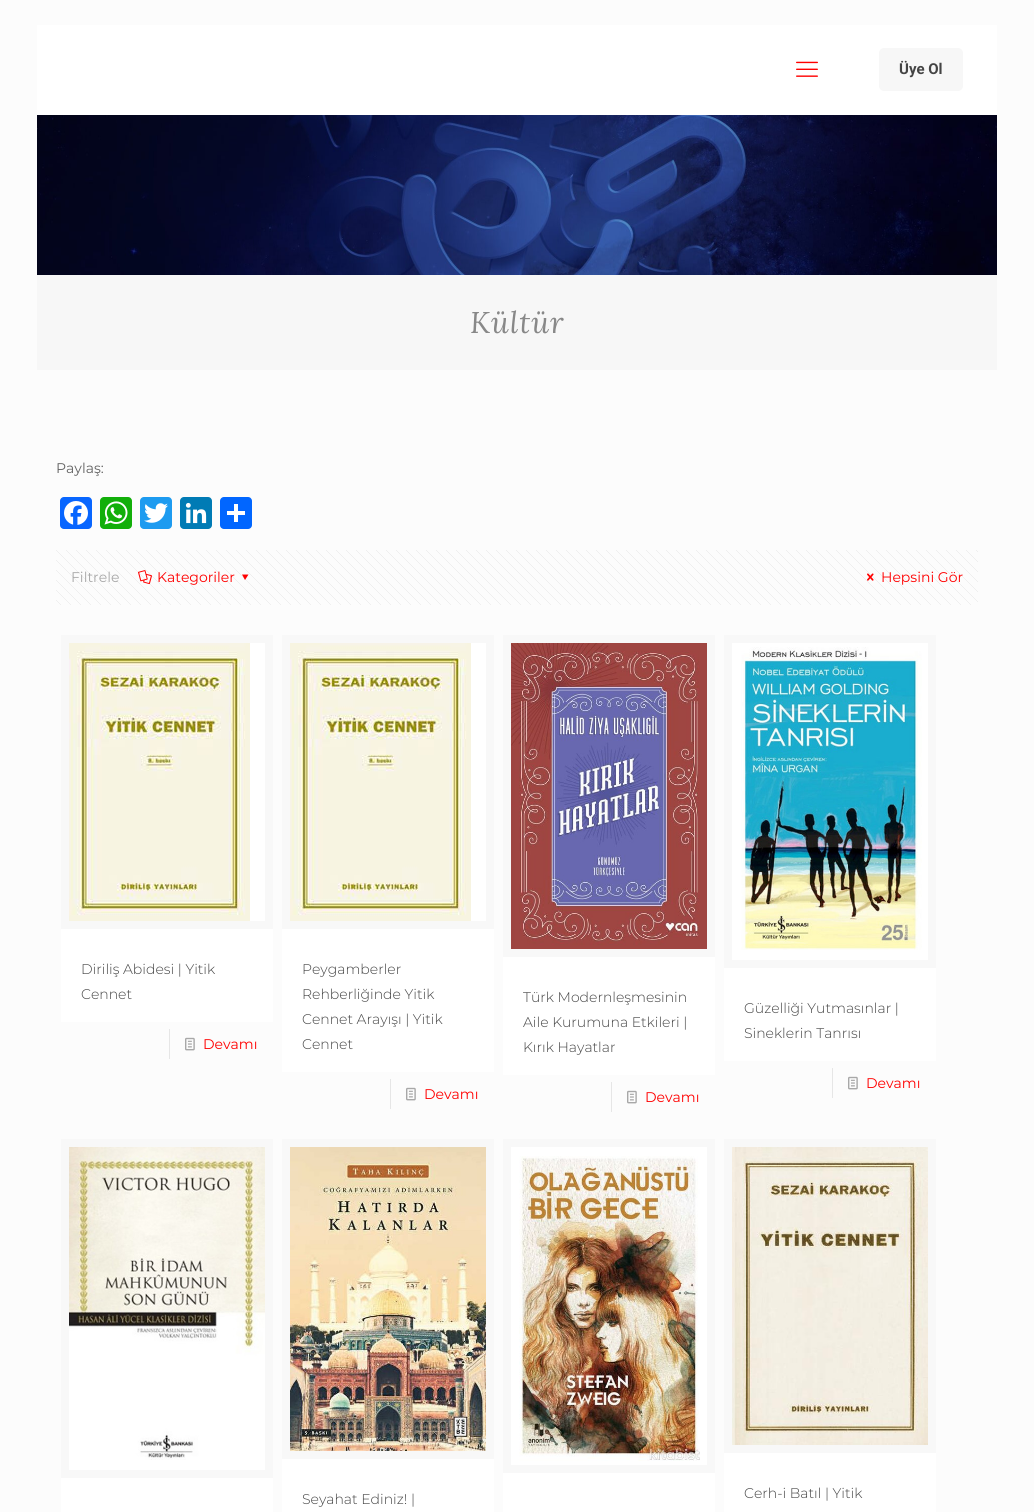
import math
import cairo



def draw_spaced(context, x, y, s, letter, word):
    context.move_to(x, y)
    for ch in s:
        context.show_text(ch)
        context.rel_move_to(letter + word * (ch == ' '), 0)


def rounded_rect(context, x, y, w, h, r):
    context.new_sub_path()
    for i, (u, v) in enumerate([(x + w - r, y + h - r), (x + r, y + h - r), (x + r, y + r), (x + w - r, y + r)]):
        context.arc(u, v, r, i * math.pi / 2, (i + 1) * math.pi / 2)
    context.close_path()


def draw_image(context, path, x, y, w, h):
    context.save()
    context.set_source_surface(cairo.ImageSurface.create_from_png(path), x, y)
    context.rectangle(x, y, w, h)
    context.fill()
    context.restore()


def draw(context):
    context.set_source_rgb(252 / 255, 252 / 255, 252 / 255)
    context.paint()
    draw_image(context, "images/1.png", 37, 115, 960, 160)
    context.set_source_rgb(1, 1, 1)
    context.rectangle(37, 25, 960, 90)
    context.fill()
    draw_image(context, "images/2.png", 796, 61, 22, 16)
    context.set_source_rgb(247 / 255, 247 / 255, 247 / 255)
    rounded_rect(context, 879, 48, 84, 43, 5)
    context.fill()
    context.rectangle(37, 275, 960, 95)
    context.fill()
    context.set_source_rgb(8 / 255, 102 / 255, 1)
    rounded_rect(context, 60, 497, 32, 32, 4)
    context.fill()
    draw_image(context, "images/3.png", 64, 501, 24, 24)
    context.set_source_rgb(18 / 255, 175 / 255, 10 / 255)
    rounded_rect(context, 100, 497, 32, 32, 4)
    context.fill()
    draw_image(context, "images/4.png", 104, 501, 24, 24)
    context.set_source_rgb(29 / 255, 155 / 255, 240 / 255)
    rounded_rect(context, 140, 497, 32, 32, 4)
    context.fill()
    draw_image(context, "images/5.png", 144, 503, 24, 20)
    context.set_source_rgb(0, 123 / 255, 181 / 255)
    rounded_rect(context, 180, 497, 32, 32, 4)
    context.fill()
    draw_image(context, "images/6.png", 185, 502, 22, 22)
    context.set_source_rgb(1 / 255, 102 / 255, 1)
    rounded_rect(context, 220, 497, 32, 32, 4)
    context.fill()
    context.set_source_rgb(1, 1, 1)
    context.rectangle(234, 504, 4, 18)
    context.fill()
    context.rectangle(227, 511, 18, 4)
    context.fill()
    draw_image(context, "images/7.png", 56, 550, 922, 55)
    draw_image(context, "images/8.png", 138, 570, 14, 15)
    context.set_source_rgb(1, 0, 0)
    context.new_path()
    context.move_to(248.5, 574.5)
    context.line_to(245, 580)
    context.line_to(242, 574.5)
    context.close_path()
    context.fill()
    draw_image(context, "images/9.png", 867, 573, 7, 8)
    context.set_source_rgb(1, 1, 1)
    context.rectangle(61, 643, 212, 379)
    context.fill()
    context.rectangle(65, 639, 204, 286)
    context.set_source_rgb(248 / 255, 248 / 255, 248 / 255)
    context.set_line_width(8)
    context.stroke()
    draw_image(context, "images/10.png", 69, 643, 181, 278)
    context.set_source_rgb(230 / 255, 230 / 255, 230 / 255)
    context.rectangle(169, 1029, 1, 30)
    context.fill()
    draw_image(context, "images/11.png", 185, 1037, 10, 14)
    context.set_source_rgb(1, 1, 1)
    context.rectangle(282, 643, 212, 429)
    context.fill()
    context.rectangle(286, 639, 204, 286)
    context.set_source_rgb(248 / 255, 248 / 255, 248 / 255)
    context.stroke()
    draw_image(context, "images/10.png", 290, 643, 181, 278)
    context.set_source_rgb(230 / 255, 230 / 255, 230 / 255)
    context.rectangle(390, 1079, 1, 30)
    context.fill()
    draw_image(context, "images/11.png", 406, 1087, 10, 14)
    context.set_source_rgb(1, 1, 1)
    context.rectangle(503, 957, 212, 118)
    context.fill()
    context.rectangle(507, 639, 204, 314)
    context.set_source_rgb(248 / 255, 248 / 255, 248 / 255)
    context.stroke()
    draw_image(context, "images/12.png", 511, 643, 196, 306)
    context.set_source_rgb(230 / 255, 230 / 255, 230 / 255)
    context.rectangle(611, 1082, 1, 30)
    context.fill()
    draw_image(context, "images/11.png", 627, 1090, 10, 14)
    context.set_source_rgb(1, 1, 1)
    context.rectangle(724, 643, 212, 418)
    context.fill()
    context.rectangle(728, 639, 204, 325)
    context.set_source_rgb(248 / 255, 248 / 255, 248 / 255)
    context.stroke()
    draw_image(context, "images/13.png", 741, 647, 181, 303)
    context.set_source_rgb(230 / 255, 230 / 255, 230 / 255)
    context.rectangle(832, 1068, 1, 30)
    context.fill()
    draw_image(context, "images/11.png", 848, 1076, 10, 14)
    context.set_source_rgb(1, 1, 1)
    context.rectangle(61, 1460, 212, 52)
    context.fill()
    context.rectangle(65, 1143, 204, 331)
    context.set_source_rgb(248 / 255, 248 / 255, 248 / 255)
    context.stroke()
    draw_image(context, "images/14.png", 69, 1147, 196, 313)
    context.set_source_rgb(1, 1, 1)
    context.rectangle(282, 1459, 212, 53)
    context.fill()
    context.rectangle(286, 1143, 204, 312)
    context.set_source_rgb(248 / 255, 248 / 255, 248 / 255)
    context.stroke()
    draw_image(context, "images/15.png", 290, 1147, 196, 304)
    context.set_source_rgb(1, 1, 1)
    context.rectangle(503, 1147, 212, 365)
    context.fill()
    context.rectangle(507, 1143, 204, 326)
    context.set_source_rgb(248 / 255, 248 / 255, 248 / 255)
    context.stroke()
    draw_image(context, "images/16.png", 519, 1156, 181, 305)
    context.set_source_rgb(1, 1, 1)
    context.rectangle(724, 1453, 212, 59)
    context.fill()
    context.rectangle(728, 1143, 204, 306)
    context.set_source_rgb(248 / 255, 248 / 255, 248 / 255)
    context.stroke()
    draw_image(context, "images/17.png", 732, 1147, 196, 298)
    context.select_font_face("Roboto", cairo.FontSlant.NORMAL, cairo.FontWeight.BOLD)
    context.set_font_size(15)
    context.set_source_rgb(68 / 255, 68 / 255, 68 / 255)
    context.move_to(899, 74)
    context.show_text("Üye Ol")
    context.select_font_face("Lora", cairo.FontSlant.ITALIC)
    context.set_font_size(30)
    context.set_source_rgb(136 / 255, 136 / 255, 136 / 255)
    draw_spaced(context, 470, 333, "Kültür", 1, 0)
    context.select_font_face("Montserrat")
    context.set_font_size(14)
    context.set_source_rgb(98 / 255, 98 / 255, 98 / 255)
    context.move_to(56, 473)
    context.show_text("Paylaş:")
    context.set_source_rgb(168 / 255, 168 / 255, 168 / 255)
    context.move_to(71, 582)
    context.show_text("Filtrele")
    context.set_source_rgb(1, 0, 0)
    context.move_to(157, 582)
    context.show_text("Kategoriler")
    context.move_to(881, 582)
    context.show_text("Hepsini Gör")
    context.select_font_face("Montserrat Light")
    context.set_source_rgb(68 / 255, 68 / 255, 68 / 255)
    context.move_to(81, 974)
    context.show_text("Diriliş Abidesi | Yitik")
    context.move_to(81, 999)
    context.show_text("Cennet")
    context.select_font_face("Montserrat")
    context.set_source_rgb(1, 0, 0)
    context.move_to(203, 1049)
    context.show_text("Devamı")
    context.select_font_face("Montserrat Light")
    context.set_source_rgb(68 / 255, 68 / 255, 68 / 255)
    context.move_to(302, 974)
    context.show_text("Peygamberler")
    context.move_to(302, 999)
    context.show_text("Rehberliğinde Yitik")
    context.move_to(302, 1024)
    context.show_text("Cennet Arayışı | Yitik")
    context.move_to(302, 1049)
    context.show_text("Cennet")
    context.select_font_face("Montserrat")
    context.set_source_rgb(1, 0, 0)
    context.move_to(424, 1099)
    context.show_text("Devamı")
    context.select_font_face("Montserrat Light")
    context.set_source_rgb(68 / 255, 68 / 255, 68 / 255)
    context.move_to(523, 1002)
    context.show_text("Türk Modernleşmesinin")
    context.move_to(523, 1027)
    context.show_text("Aile Kurumuna Etkileri |")
    context.move_to(523, 1052)
    context.show_text("Kırık Hayatlar")
    context.select_font_face("Montserrat")
    context.set_source_rgb(1, 0, 0)
    context.move_to(645, 1102)
    context.show_text("Devamı")
    context.select_font_face("Montserrat Light")
    context.set_source_rgb(68 / 255, 68 / 255, 68 / 255)
    context.move_to(744, 1013)
    context.show_text("Güzelliği Yutmasınlar |")
    context.move_to(744, 1038)
    context.show_text("Sineklerin Tanrısı")
    context.select_font_face("Montserrat")
    context.set_source_rgb(1, 0, 0)
    context.move_to(866, 1088)
    context.show_text("Devamı")
    context.select_font_face("Montserrat Light")
    context.set_source_rgb(68 / 255, 68 / 255, 68 / 255)
    context.move_to(302, 1504)
    context.show_text("Seyahat Ediniz! |")
    context.move_to(744, 1498)
    context.show_text("Cerh-i Batıl | Yitik")


surface = cairo.ImageSurface(cairo.Format.RGB24, 1034, 1512)
context = cairo.Context(surface)
options = cairo.FontOptions()
options.set_hint_metrics(cairo.HintMetrics.OFF)
options.set_hint_style(cairo.HintStyle.NONE)
context.set_font_options(options)
context.set_miter_limit(4)
draw(context)
surface.write_to_png("out.png")
